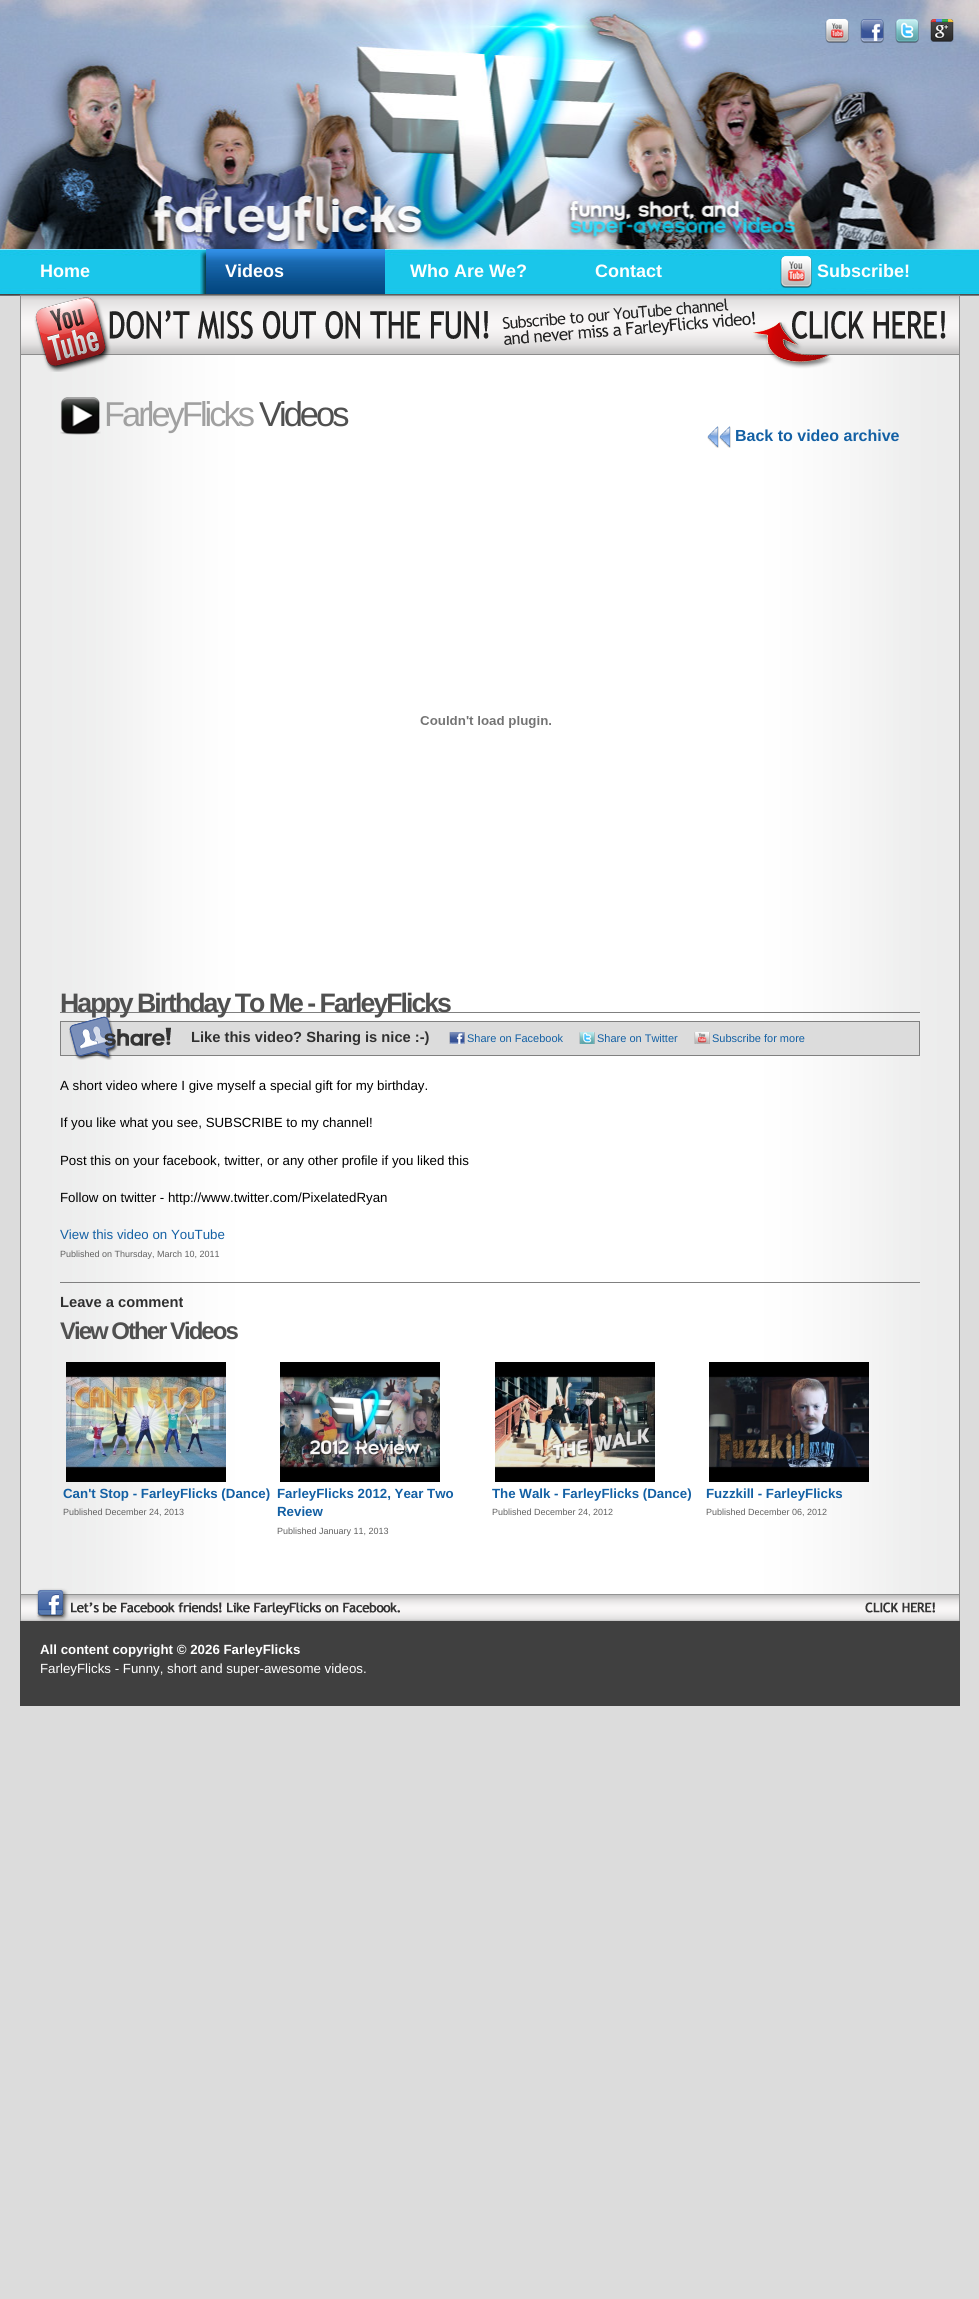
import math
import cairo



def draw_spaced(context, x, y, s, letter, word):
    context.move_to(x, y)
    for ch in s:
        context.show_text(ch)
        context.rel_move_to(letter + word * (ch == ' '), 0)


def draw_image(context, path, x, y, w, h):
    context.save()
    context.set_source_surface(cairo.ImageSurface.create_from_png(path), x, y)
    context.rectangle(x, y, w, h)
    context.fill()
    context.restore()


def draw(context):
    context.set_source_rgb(220 / 255, 220 / 255, 220 / 255)
    context.paint()
    draw_image(context, "images/1.png", 0, 0, 979, 296)
    draw_image(context, "images/2.png", 825, 19, 24, 24)
    draw_image(context, "images/3.png", 860, 19, 24, 24)
    draw_image(context, "images/4.png", 895, 19, 24, 24)
    draw_image(context, "images/5.png", 930, 19, 24, 24)
    draw_image(context, "images/6.png", 200, 249, 185, 45)
    draw_image(context, "images/7.png", 780, 256, 32, 32)
    draw_image(context, "images/8.png", 20, 354, 940, 1267)
    draw_image(context, "images/9.png", 20, 294, 940, 78)
    draw_image(context, "images/10.png", 60, 397, 41, 38)
    draw_image(context, "images/11.png", 707, 426, 24, 22)
    draw_image(context, "images/12.png", 420, 716, 131, 12)
    context.set_source_rgb(128 / 255, 128 / 255, 128 / 255)
    context.rectangle(60, 1012, 860, 1)
    context.fill()
    context.set_source_rgb(220 / 255, 220 / 255, 220 / 255)
    context.rectangle(60.5, 1021.5, 859, 34)
    context.fill_preserve()
    context.set_source_rgb(128 / 255, 128 / 255, 128 / 255)
    context.set_line_width(1)
    context.stroke()
    draw_image(context, "images/14.png", 449, 1032, 16, 12)
    draw_image(context, "images/15.png", 579, 1032, 16, 12)
    draw_image(context, "images/16.png", 694, 1032, 16, 12)
    context.rectangle(60, 1282, 860, 1)
    context.fill()
    draw_image(context, "images/17.png", 66, 1362, 160, 120)
    draw_image(context, "images/18.png", 280, 1362, 160, 120)
    draw_image(context, "images/19.png", 495, 1362, 160, 120)
    draw_image(context, "images/20.png", 709, 1362, 160, 120)
    draw_image(context, "images/21.png", 21, 1588, 938, 33)
    context.set_source_rgb(64 / 255, 64 / 255, 64 / 255)
    context.rectangle(20, 1621, 940, 85)
    context.fill()
    context.select_font_face("Liberation Sans", cairo.FontSlant.NORMAL, cairo.FontWeight.BOLD)
    context.set_font_size(18)
    context.set_source_rgb(1, 1, 1)
    context.move_to(40, 277)
    context.show_text("Home")
    context.move_to(225, 277)
    context.show_text("Videos")
    context.move_to(410, 277)
    context.show_text("Who Are We?")
    context.move_to(595, 277)
    context.show_text("Contact")
    context.move_to(817, 277)
    context.show_text("Subscribe!")
    context.select_font_face("Liberation Sans")
    context.set_font_size(34.5)
    context.set_source_rgb(160 / 255, 160 / 255, 160 / 255)
    draw_spaced(context, 104, 426, "FarleyFlicks", -3, 0)
    context.set_source_rgb(80 / 255, 80 / 255, 80 / 255)
    draw_spaced(context, 259, 426, "Videos", -3, 0)
    context.select_font_face("Liberation Sans", cairo.FontSlant.NORMAL, cairo.FontWeight.BOLD)
    context.set_font_size(16)
    context.set_source_rgb(19 / 255, 96 / 255, 164 / 255)
    context.move_to(735, 441)
    context.show_text("Back to video archive")
    context.set_font_size(26.7)
    context.set_source_rgb(80 / 255, 80 / 255, 80 / 255)
    draw_spaced(context, 60, 1012, "Happy Birthday To Me - FarleyFlicks", -2, 0)
    draw_image(context, "images/13.png", 69, 1016, 102, 44)
    context.set_font_size(14.7)
    context.set_source_rgb(48 / 255, 48 / 255, 48 / 255)
    context.move_to(191, 1042)
    context.show_text("Like this video? Sharing is nice :-)")
    context.select_font_face("Liberation Sans")
    context.set_font_size(11)
    context.set_source_rgb(19 / 255, 96 / 255, 164 / 255)
    context.move_to(467, 1042)
    context.show_text("Share on Facebook")
    context.move_to(597, 1042)
    context.show_text("Share on Twitter")
    context.move_to(712, 1042)
    context.show_text("Subscribe for more")
    context.set_font_size(13.3)
    context.set_source_rgb(0, 0, 0)
    context.move_to(60, 1090)
    context.show_text("A short video where I give myself a special gift for my birthday.")
    context.move_to(60, 1127)
    context.show_text("If you like what you see, SUBSCRIBE to my channel!")
    context.move_to(60, 1165)
    context.show_text("Post this on your facebook, twitter, or any other profile if you liked this")
    context.move_to(60, 1202)
    context.show_text("Follow on twitter - http://www.twitter.com/PixelatedRyan")
    context.set_source_rgb(19 / 255, 96 / 255, 164 / 255)
    context.move_to(60, 1239)
    context.show_text("View this video on YouTube")
    context.set_font_size(9)
    context.set_source_rgb(96 / 255, 96 / 255, 96 / 255)
    context.move_to(60, 1257)
    context.show_text("Published on Thursday, March 10, 2011")
    context.select_font_face("Liberation Sans", cairo.FontSlant.NORMAL, cairo.FontWeight.BOLD)
    context.set_font_size(14.7)
    context.set_source_rgb(48 / 255, 48 / 255, 48 / 255)
    context.move_to(60, 1307)
    context.show_text("Leave a comment")
    context.set_font_size(24)
    context.set_source_rgb(80 / 255, 80 / 255, 80 / 255)
    draw_spaced(context, 60, 1339, "View Other Videos", -2, 0)
    context.set_font_size(13.3)
    context.set_source_rgb(19 / 255, 96 / 255, 164 / 255)
    context.move_to(63, 1498)
    context.show_text("Can't Stop - FarleyFlicks (Dance)")
    context.select_font_face("Liberation Sans")
    context.set_font_size(9)
    context.set_source_rgb(96 / 255, 96 / 255, 96 / 255)
    context.move_to(63, 1515)
    context.show_text("Published December 24, 2013")
    context.select_font_face("Liberation Sans", cairo.FontSlant.NORMAL, cairo.FontWeight.BOLD)
    context.set_font_size(13.3)
    context.set_source_rgb(19 / 255, 96 / 255, 164 / 255)
    context.move_to(277, 1498)
    context.show_text("FarleyFlicks 2012, Year Two")
    context.move_to(277, 1516)
    context.show_text("Review")
    context.select_font_face("Liberation Sans")
    context.set_font_size(9)
    context.set_source_rgb(96 / 255, 96 / 255, 96 / 255)
    context.move_to(277, 1534)
    context.show_text("Published January 11, 2013")
    context.select_font_face("Liberation Sans", cairo.FontSlant.NORMAL, cairo.FontWeight.BOLD)
    context.set_font_size(13.3)
    context.set_source_rgb(19 / 255, 96 / 255, 164 / 255)
    context.move_to(492, 1498)
    context.show_text("The Walk - FarleyFlicks (Dance)")
    context.select_font_face("Liberation Sans")
    context.set_font_size(9)
    context.set_source_rgb(96 / 255, 96 / 255, 96 / 255)
    context.move_to(492, 1515)
    context.show_text("Published December 24, 2012")
    context.select_font_face("Liberation Sans", cairo.FontSlant.NORMAL, cairo.FontWeight.BOLD)
    context.set_font_size(13.3)
    context.set_source_rgb(19 / 255, 96 / 255, 164 / 255)
    context.move_to(706, 1498)
    context.show_text("Fuzzkill - FarleyFlicks")
    context.select_font_face("Liberation Sans")
    context.set_font_size(9)
    context.set_source_rgb(96 / 255, 96 / 255, 96 / 255)
    context.move_to(706, 1515)
    context.show_text("Published December 06, 2012")
    context.select_font_face("Liberation Sans", cairo.FontSlant.NORMAL, cairo.FontWeight.BOLD)
    context.set_font_size(13.3)
    context.set_source_rgb(1, 1, 1)
    context.move_to(40, 1654)
    context.show_text("All content copyright © 2026 FarleyFlicks")
    context.select_font_face("Liberation Sans")
    context.move_to(40, 1673)
    context.show_text("FarleyFlicks - Funny, short and super-awesome videos.")


surface = cairo.ImageSurface(cairo.Format.RGB24, 979, 2299)
context = cairo.Context(surface)
options = cairo.FontOptions()
options.set_hint_metrics(cairo.HintMetrics.OFF)
options.set_hint_style(cairo.HintStyle.NONE)
context.set_font_options(options)
context.set_miter_limit(4)
draw(context)
surface.write_to_png("out.png")
